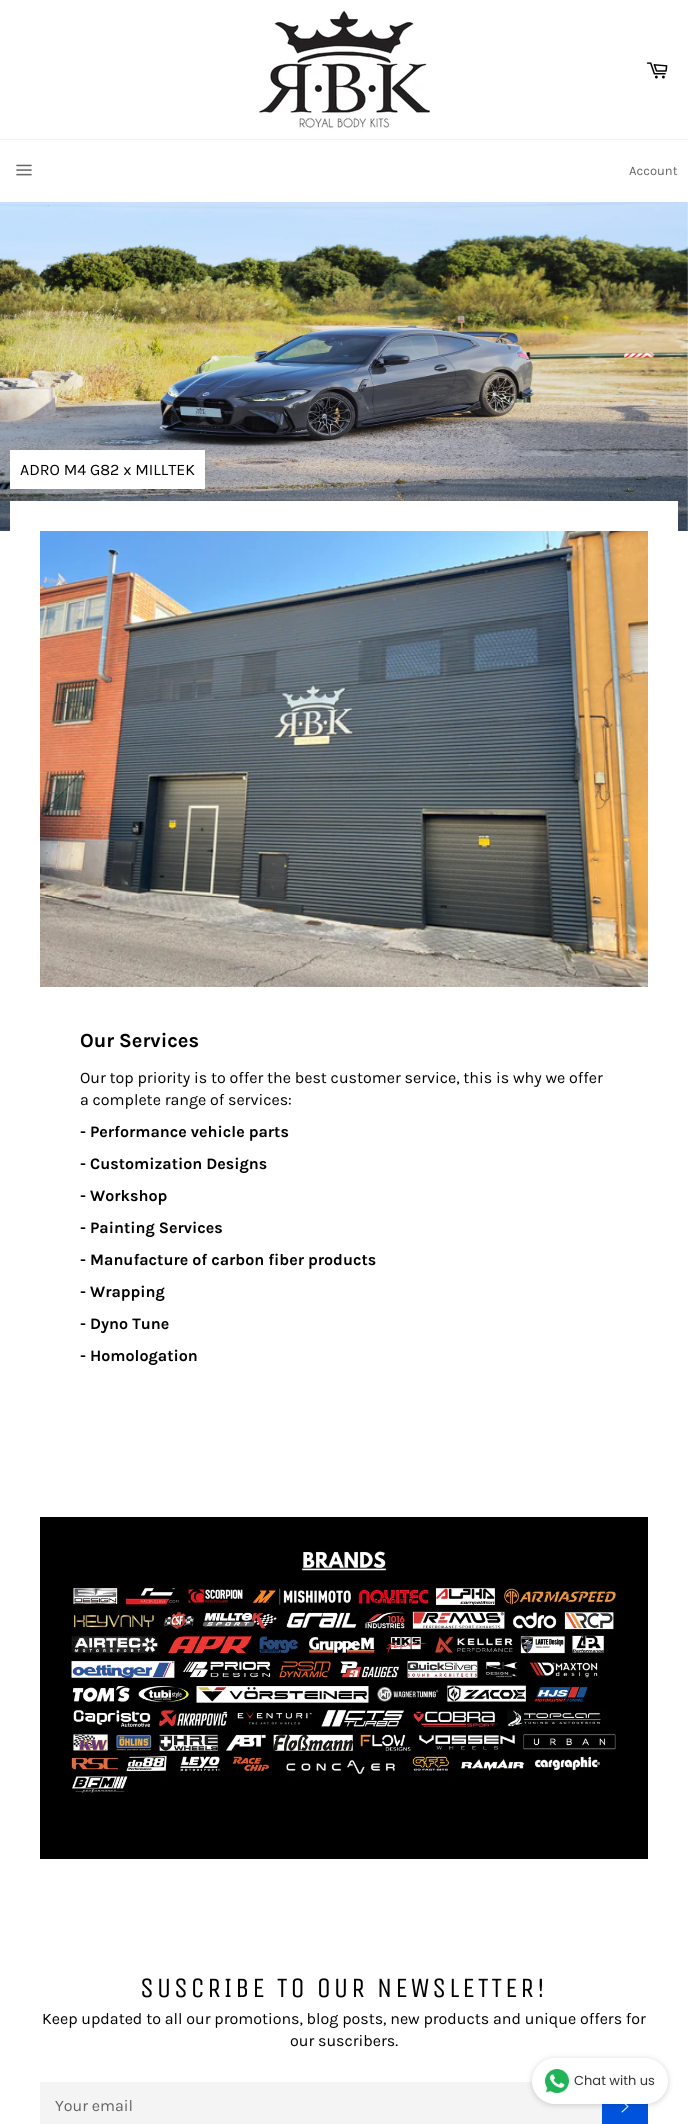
import math
import cairo



def draw_spaced(context, x, y, s, letter, word):
    context.move_to(x, y)
    for ch in s:
        context.show_text(ch)
        context.rel_move_to(letter + word * (ch == ' '), 0)


def rounded_rect(context, x, y, w, h, r):
    context.new_sub_path()
    for i, (u, v) in enumerate([(x + w - r, y + h - r), (x + r, y + h - r), (x + r, y + r), (x + w - r, y + r)]):
        context.arc(u, v, r, i * math.pi / 2, (i + 1) * math.pi / 2)
    context.close_path()


def draw_shadow(context, x, y, w, h, r, blur, alpha):
    context.push_group_with_content(cairo.Content.ALPHA)
    context.set_operator(cairo.Operator.SOURCE)
    for i in range(15, -16, -2):
        e = blur * i / 6
        if min(w, h) + 2 * e > 0:
            context.set_source_rgba(0, 0, 0, alpha * math.erfc((i - 1) / 8.5) / 2)
            rounded_rect(context, x - e, y - e, w + 2 * e, h + 2 * e, max(0, min(r + e + blur * .6, min(w, h) / 2 + e)))
            context.fill()
    context.mask(context.pop_group())


def draw_image(context, path, x, y, w, h):
    context.save()
    context.set_source_surface(cairo.ImageSurface.create_from_png(path), x, y)
    context.rectangle(x, y, w, h)
    context.fill()
    context.restore()


def draw(context):
    context.set_source_rgb(1, 1, 1)
    context.paint()
    draw_image(context, "images/1.png", 258, 11, 173, 118)
    draw_image(context, "images/2.png", 646, 62, 22, 17)
    context.set_source_rgb(242 / 255, 242 / 255, 242 / 255)
    context.rectangle(0, 139, 688, 1)
    context.fill()
    draw_image(context, "images/3.png", 16, 164, 16, 12)
    draw_image(context, "images/4.png", 0, 202, 688, 329)
    context.set_source_rgb(1, 1, 1)
    context.rectangle(10, 450, 195, 39)
    context.fill()
    context.rectangle(10, 501, 668, 30)
    context.fill()
    draw_image(context, "images/5.png", 40, 531, 608, 456)
    draw_image(context, "images/6.png", 40, 1517, 608, 342)
    context.set_source_rgb(244 / 255, 244 / 255, 244 / 255)
    context.rectangle(40, 2082, 562, 42)
    context.fill()
    context.set_source_rgb(0, 83 / 255, 220 / 255)
    context.rectangle(602, 2103, 46, 21)
    context.fill()
    draw_image(context, "images/7.png", 621, 2104, 8, 9)
    context.set_source_rgb(27 / 255, 27 / 255, 27 / 255)
    draw_shadow(context, 532, 2059, 136, 46, 23, 3, 0.2)
    context.set_source_rgb(1, 1, 1)
    rounded_rect(context, 532.5, 2058.5, 135, 45, 22.5)
    context.fill_preserve()
    context.set_line_width(1)
    context.stroke()
    draw_image(context, "images/8.png", 545, 2069, 24, 24)
    context.select_font_face("Karla")
    context.set_font_size(13)
    context.set_source_rgb(99 / 255, 99 / 255, 99 / 255)
    context.move_to(629, 175)
    context.show_text("Account")
    context.set_font_size(16)
    context.set_source_rgb(0, 0, 0)
    context.move_to(20, 475)
    context.show_text("ADRO M4 G82 x MILLTEK")
    context.select_font_face("Karla", cairo.FontSlant.NORMAL, cairo.FontWeight.BOLD)
    context.set_font_size(20)
    context.move_to(80, 1047)
    context.show_text("Our Services")
    context.select_font_face("Karla")
    context.set_font_size(16)
    context.move_to(80, 1083)
    context.show_text("Our top priority is to offer the best customer service, this is why we offer")
    context.move_to(80, 1105)
    context.show_text("a complete range of services:")
    context.select_font_face("Karla", cairo.FontSlant.NORMAL, cairo.FontWeight.BOLD)
    context.move_to(80, 1137)
    context.show_text("- Performance vehicle parts")
    context.move_to(80, 1169)
    context.show_text("- Customization Designs")
    context.move_to(80, 1201)
    context.show_text("- Workshop")
    context.move_to(80, 1233)
    context.show_text("- Painting Services")
    context.move_to(80, 1265)
    context.show_text("- Manufacture of carbon fiber products")
    context.move_to(80, 1297)
    context.show_text("- Wrapping")
    context.move_to(80, 1329)
    context.show_text("- Dyno Tune")
    context.move_to(80, 1361)
    context.show_text("- Homologation")
    context.select_font_face("Unica One")
    context.set_font_size(28)
    draw_spaced(context, 140, 1997, "SUSCRIBE TO OUR NEWSLETTER!", 2.8, 0)
    context.select_font_face("Karla")
    context.set_font_size(16)
    context.move_to(42, 2024)
    context.show_text("Keep updated to all our promotions, blog posts, new products and unique offers for")
    context.move_to(290, 2046)
    context.show_text("our suscribers.")
    context.set_source_rgb(99 / 255, 99 / 255, 99 / 255)
    context.move_to(55, 2111)
    context.show_text("Your email")
    context.select_font_face("Poppins")
    context.set_font_size(13)
    context.set_source_rgb(51 / 255, 51 / 255, 51 / 255)
    context.move_to(574, 2085)
    context.show_text("Chat with us")


surface = cairo.ImageSurface(cairo.Format.RGB24, 688, 2124)
context = cairo.Context(surface)
options = cairo.FontOptions()
options.set_hint_metrics(cairo.HintMetrics.OFF)
options.set_hint_style(cairo.HintStyle.NONE)
context.set_font_options(options)
context.set_miter_limit(4)
draw(context)
surface.write_to_png("out.png")
